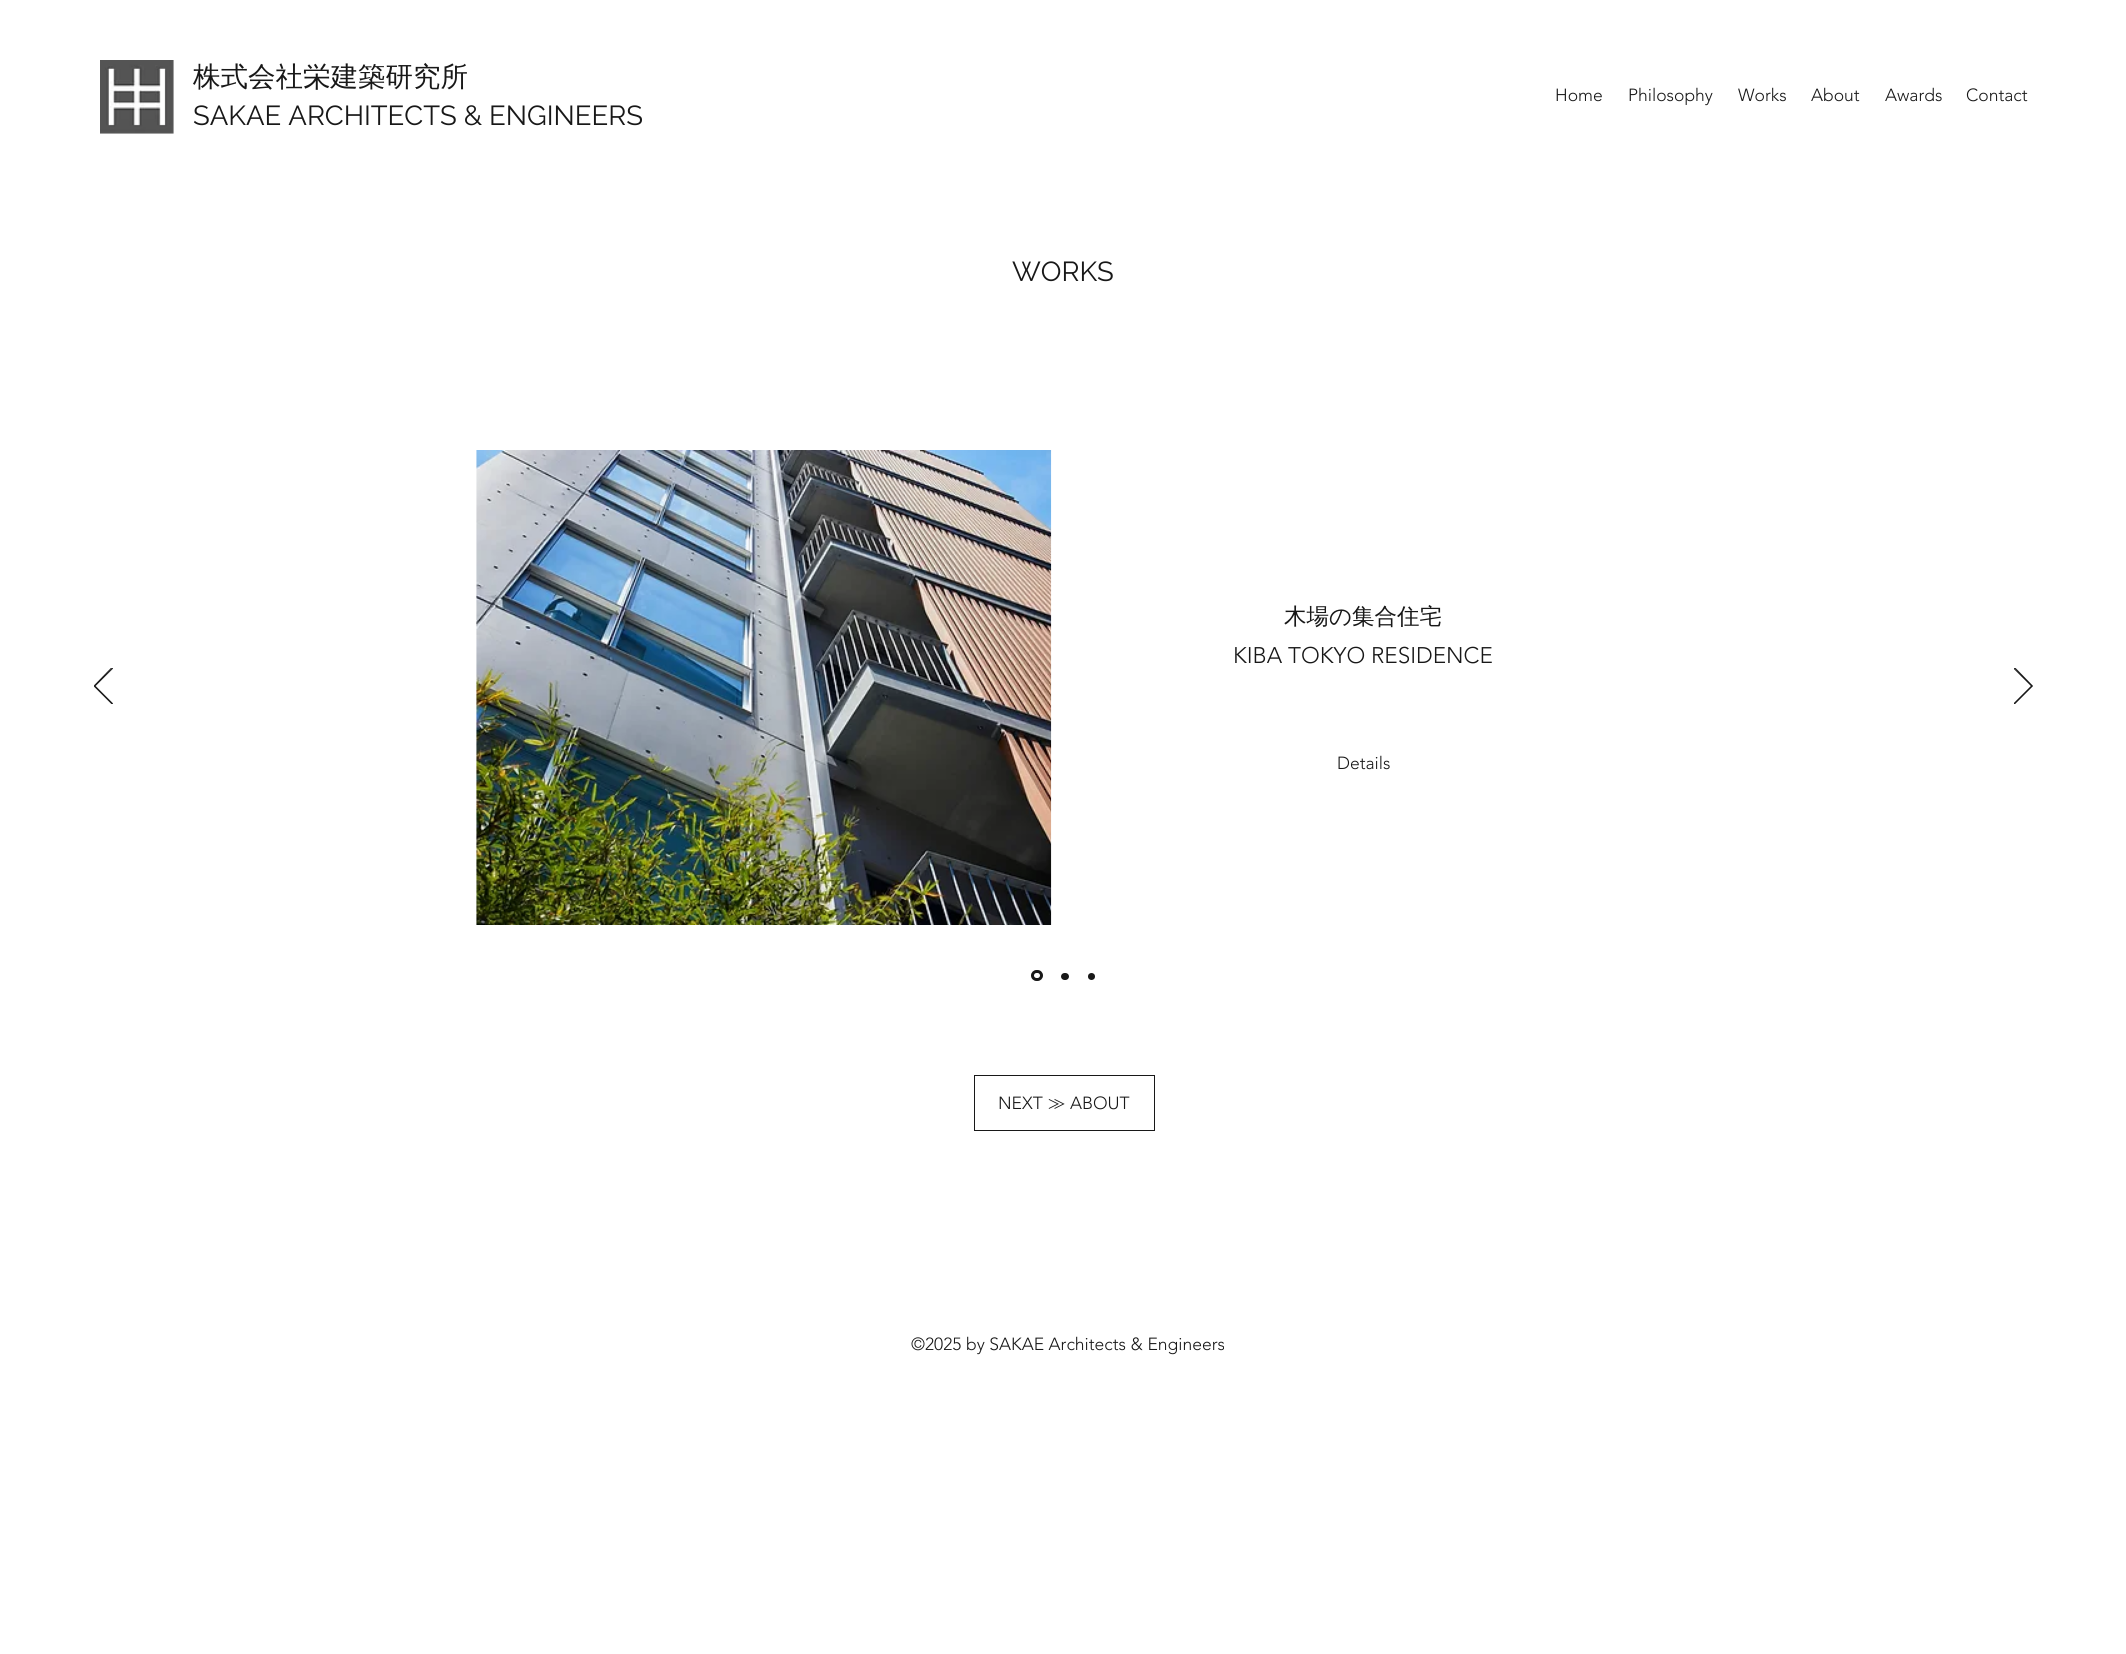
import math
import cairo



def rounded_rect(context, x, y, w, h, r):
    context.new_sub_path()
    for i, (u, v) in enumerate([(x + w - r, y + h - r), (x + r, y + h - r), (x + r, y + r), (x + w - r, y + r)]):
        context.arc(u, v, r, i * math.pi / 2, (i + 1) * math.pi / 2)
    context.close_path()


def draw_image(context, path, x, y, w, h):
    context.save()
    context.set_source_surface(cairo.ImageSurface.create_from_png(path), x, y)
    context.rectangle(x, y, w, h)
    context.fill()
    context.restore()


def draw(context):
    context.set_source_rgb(1, 1, 1)
    context.paint()
    draw_image(context, "images/1.png", 100, 60, 74, 74)
    context.rectangle(974.5, 1075.5, 180, 55)
    context.set_source_rgb(24 / 255, 24 / 255, 24 / 255)
    context.set_line_width(1)
    context.stroke()
    context.save()
    context.rectangle(94, 668, 19, 36)
    context.clip()
    context.new_path()
    context.move_to(112, 704)
    context.line_to(94, 686)
    context.line_to(112, 667.5)
    context.line_to(112.5, 668.5)
    context.line_to(95, 686)
    context.line_to(112.5, 703.5)
    context.close_path()
    context.set_line_width(0.9)
    context.stroke()
    context.restore()
    draw_image(context, "images/2.png", 476, 450, 576, 475)
    context.save()
    context.rectangle(2014, 668, 19, 36)
    context.clip()
    context.new_path()
    context.move_to(2014.5, 704)
    context.line_to(2032.5, 686)
    context.line_to(2014.5, 667.5)
    context.line_to(2014, 668.5)
    context.line_to(2031.5, 686)
    context.line_to(2014, 703.5)
    context.close_path()
    context.set_line_width(0.9)
    context.stroke()
    context.restore()
    rounded_rect(context, 1032.5, 971.5, 9, 8, 4)
    context.set_line_width(3)
    context.stroke()
    rounded_rect(context, 1061, 973, 8, 7, 3.5)
    context.fill()
    context.arc(1091.5, 976.5, 3.5, 0, 2 * math.pi)
    context.fill()
    context.select_font_face("WenQuanYi Zen Hei Medium")
    context.set_font_size(27.5)
    context.move_to(193, 86)
    context.show_text("株式会社栄建築研究所")
    context.select_font_face("Raleway")
    context.move_to(193, 125)
    context.show_text("SAKAE ARCHITECTS & ENGINEERS")
    context.select_font_face("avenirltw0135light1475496 Light")
    context.set_font_size(17.5)
    context.move_to(1555, 101)
    context.show_text("Home")
    context.move_to(1628, 101)
    context.show_text("Philosophy")
    context.move_to(1738, 101)
    context.show_text("Works")
    context.move_to(1811, 101)
    context.show_text("About")
    context.move_to(1885, 101)
    context.show_text("Awards")
    context.move_to(1966, 101)
    context.show_text("Contact")
    context.select_font_face("Raleway")
    context.set_font_size(27.5)
    context.move_to(1012, 281)
    context.show_text("WORKS")
    context.select_font_face("avenirltw0135light1475496 Light")
    context.set_font_size(17.5)
    context.move_to(998, 1109)
    context.show_text("NEXT")
    context.select_font_face("WenQuanYi Zen Hei Medium")
    context.move_to(1048, 1109)
    context.show_text("≫")
    context.select_font_face("avenirltw0135light1475496 Light")
    context.move_to(1070, 1109)
    context.show_text("ABOUT")
    context.select_font_face("WenQuanYi Zen Hei Medium")
    context.set_font_size(22.5)
    context.move_to(1284, 624)
    context.show_text("木場の集合住宅")
    context.select_font_face("avenirltw0135light1475496 Light")
    context.move_to(1233, 663)
    context.show_text("KIBA TOKYO RESIDENCE")
    context.set_font_size(17.5)
    context.move_to(1337, 769)
    context.show_text("Details")
    context.move_to(911, 1350)
    context.show_text("©2025 by SAKAE Architects & Engineers")


surface = cairo.ImageSurface(cairo.Format.RGB24, 2126, 1654)
context = cairo.Context(surface)
options = cairo.FontOptions()
options.set_hint_metrics(cairo.HintMetrics.OFF)
options.set_hint_style(cairo.HintStyle.NONE)
context.set_font_options(options)
context.set_miter_limit(4)
draw(context)
surface.write_to_png("out.png")
